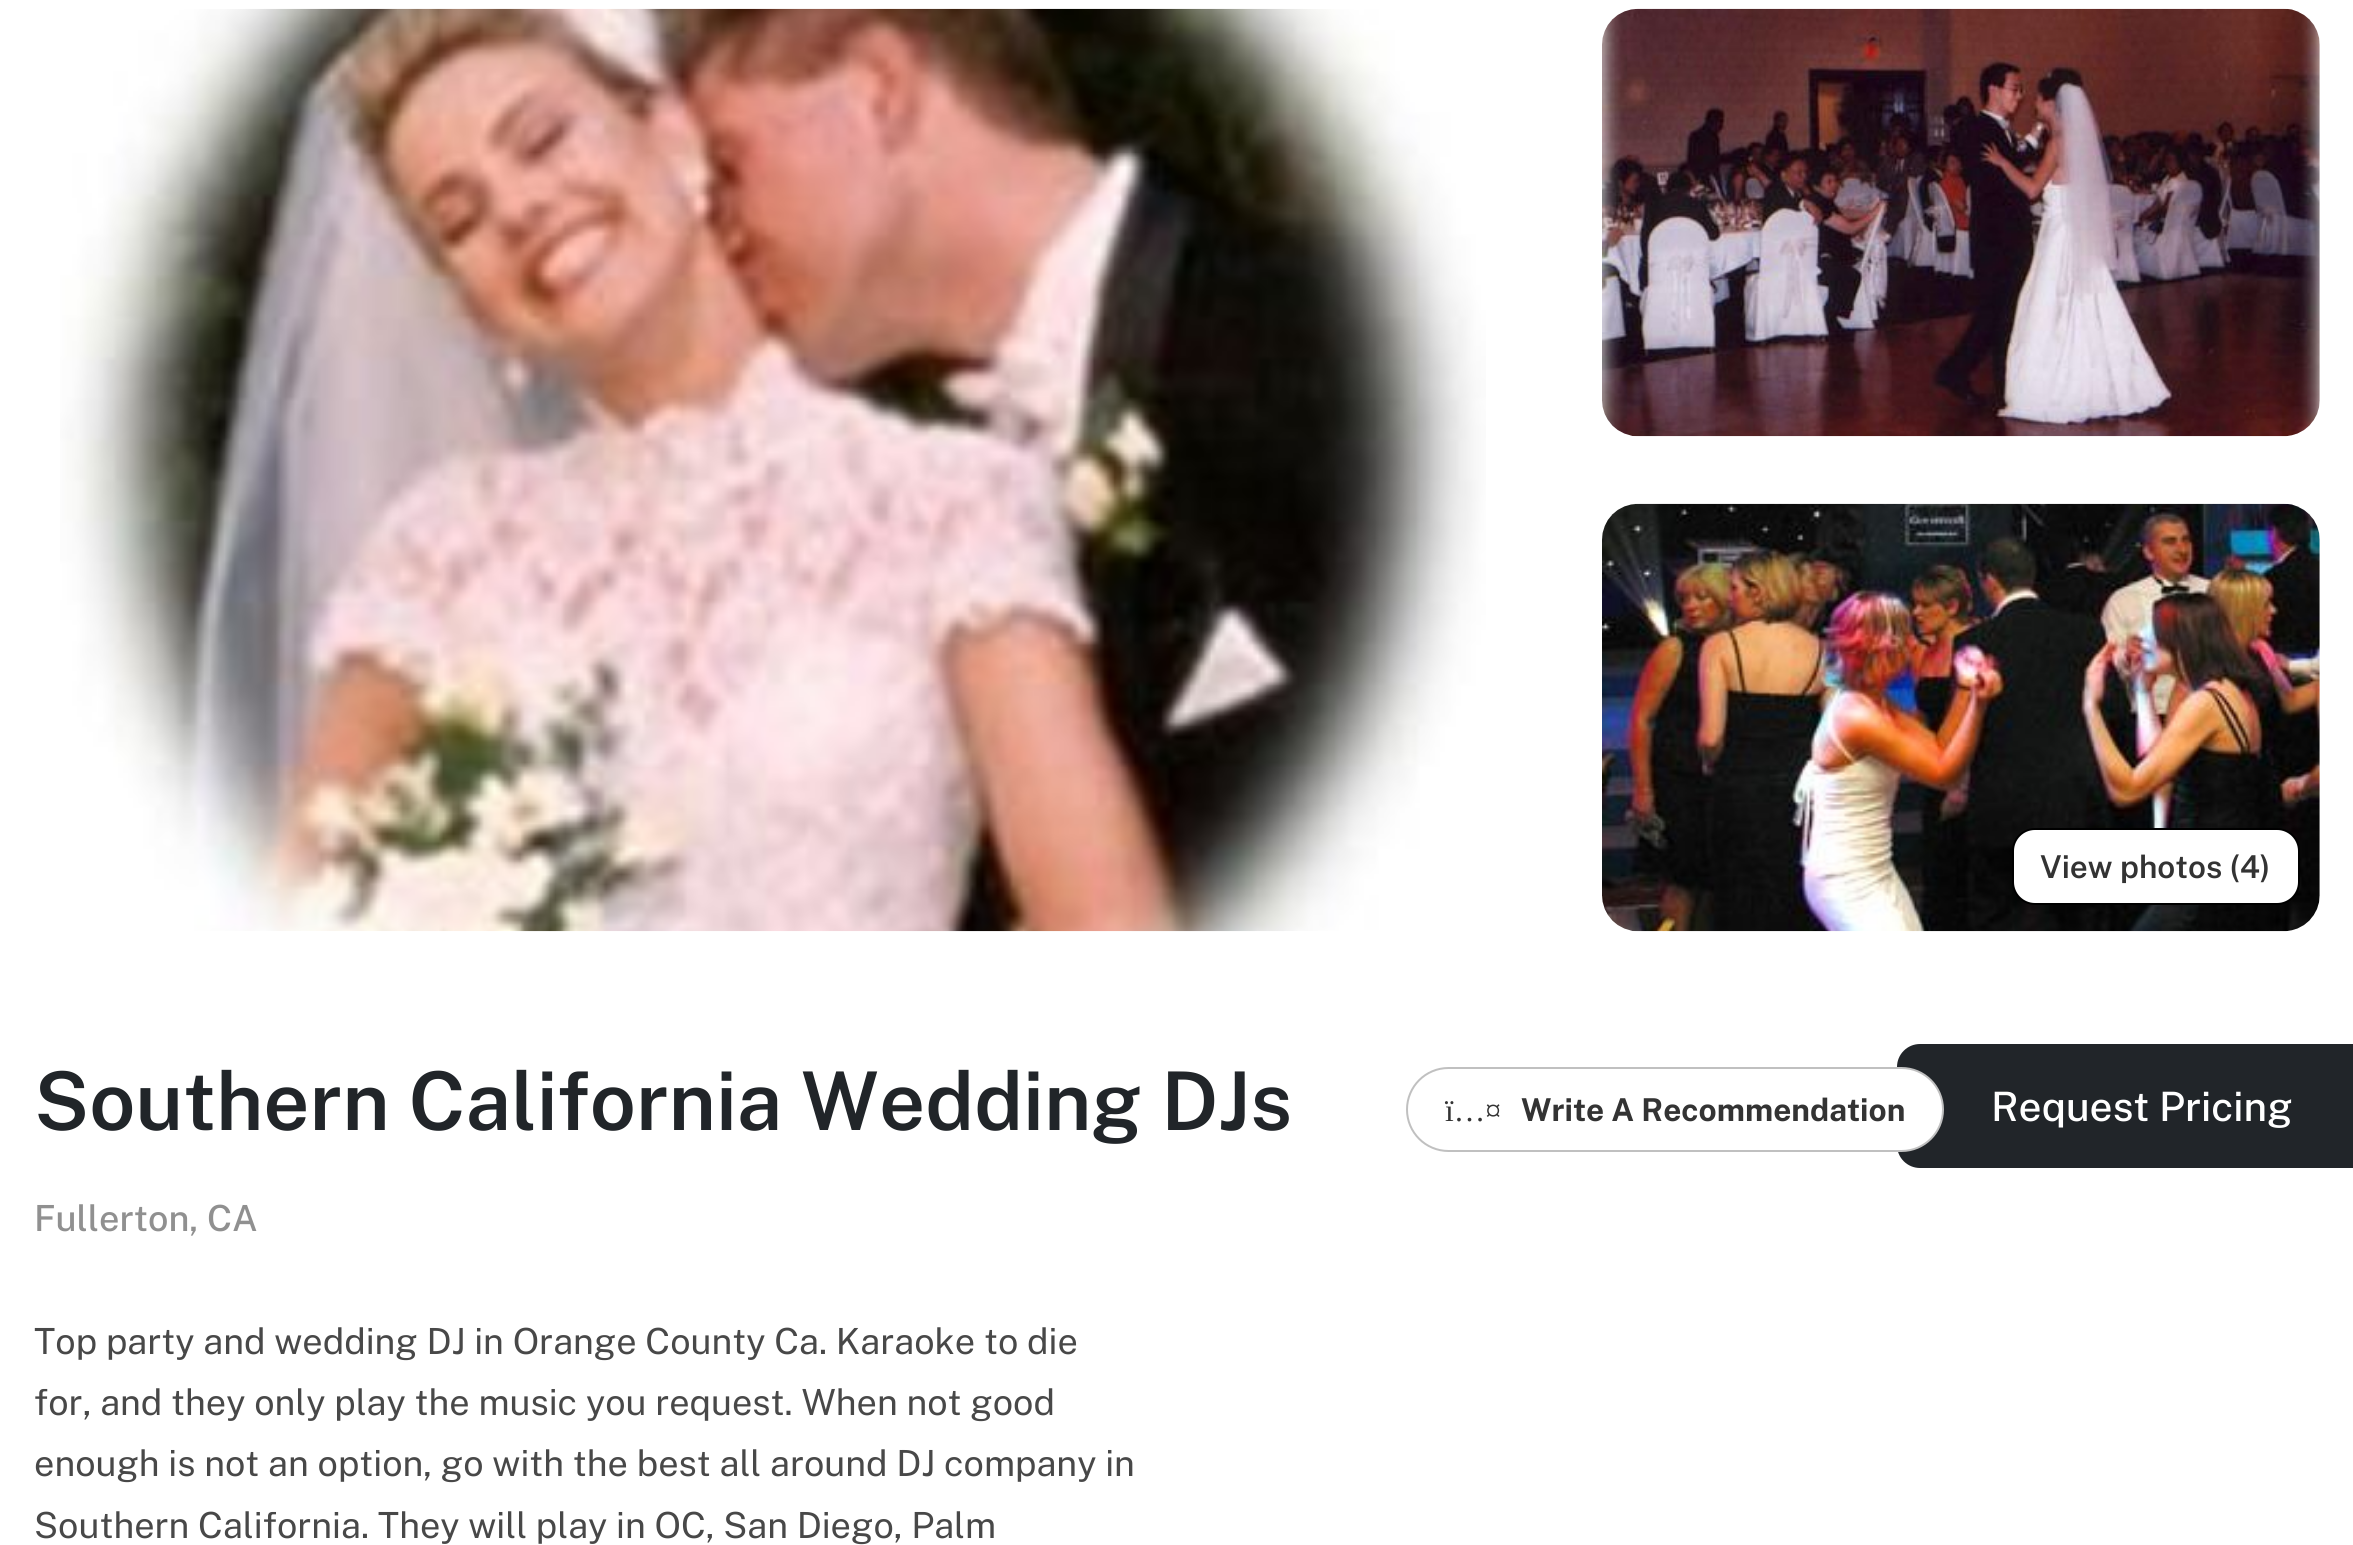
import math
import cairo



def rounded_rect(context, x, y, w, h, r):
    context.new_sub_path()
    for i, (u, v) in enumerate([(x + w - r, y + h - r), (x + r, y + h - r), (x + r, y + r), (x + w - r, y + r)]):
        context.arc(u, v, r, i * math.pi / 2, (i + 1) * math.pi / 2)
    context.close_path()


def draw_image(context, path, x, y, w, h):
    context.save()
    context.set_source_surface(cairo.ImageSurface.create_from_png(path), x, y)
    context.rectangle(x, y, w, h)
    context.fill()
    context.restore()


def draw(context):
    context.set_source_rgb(1, 1, 1)
    context.paint()
    draw_image(context, "images/1.png", 60, 8, 1426, 924)
    draw_image(context, "images/2.png", 1602, 8, 718, 429)
    draw_image(context, "images/3.png", 1602, 503, 718, 429)
    context.set_source_rgb(1, 1, 1)
    rounded_rect(context, 2013, 829, 286, 75, 22)
    context.fill_preserve()
    context.set_source_rgb(0, 0, 0)
    context.stroke()
    context.set_source_rgb(33 / 255, 37 / 255, 41 / 255)
    rounded_rect(context, 1897, 1044, 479, 124, 23)
    context.fill()
    context.set_source_rgb(1, 1, 1)
    rounded_rect(context, 1407, 1068, 536, 83, 41.5)
    context.fill_preserve()
    context.set_source_rgb(192 / 255, 192 / 255, 192 / 255)
    context.stroke()
    context.select_font_face("Public Sans SemiBold")
    context.set_font_size(31.5)
    context.set_source_rgb(51 / 255, 51 / 255, 51 / 255)
    context.move_to(2040, 878)
    context.show_text("View photos (4)")
    context.set_font_size(81)
    context.set_source_rgb(33 / 255, 37 / 255, 41 / 255)
    context.move_to(34, 1130)
    context.show_text("Southern California Wedding DJs")
    context.select_font_face("Public Sans Medium")
    context.set_font_size(36)
    context.set_source_rgb(144 / 255, 144 / 255, 144 / 255)
    context.move_to(34, 1231)
    context.show_text("Fullerton, CA")
    context.select_font_face("Liberation Serif")
    context.set_font_size(31.5)
    context.set_source_rgb(51 / 255, 51 / 255, 51 / 255)
    context.move_to(1445, 1121)
    context.show_text("ï…¤")
    context.select_font_face("Public Sans", cairo.FontSlant.NORMAL, cairo.FontWeight.BOLD)
    context.move_to(1521, 1121)
    context.show_text("Write A Recommendation")
    context.select_font_face("Public Sans Medium")
    context.set_font_size(40.5)
    context.set_source_rgb(1, 1, 1)
    context.move_to(1991, 1121)
    context.show_text("Request Pricing")
    context.select_font_face("Public Sans")
    context.set_font_size(36)
    context.set_source_rgb(72 / 255, 72 / 255, 72 / 255)
    context.move_to(34, 1354)
    context.show_text("Top party and wedding DJ in Orange County Ca. Karaoke to die")
    context.move_to(34, 1415)
    context.show_text("for, and they only play the music you request. When not good")
    context.move_to(34, 1476)
    context.show_text("enough is not an option, go with the best all around DJ company in")
    context.move_to(34, 1538)
    context.show_text("Southern California. They will play in OC, San Diego, Palm")


surface = cairo.ImageSurface(cairo.Format.RGB24, 2353, 1545)
context = cairo.Context(surface)
options = cairo.FontOptions()
options.set_hint_metrics(cairo.HintMetrics.OFF)
options.set_hint_style(cairo.HintStyle.NONE)
context.set_font_options(options)
context.set_miter_limit(4)
draw(context)
surface.write_to_png("out.png")
